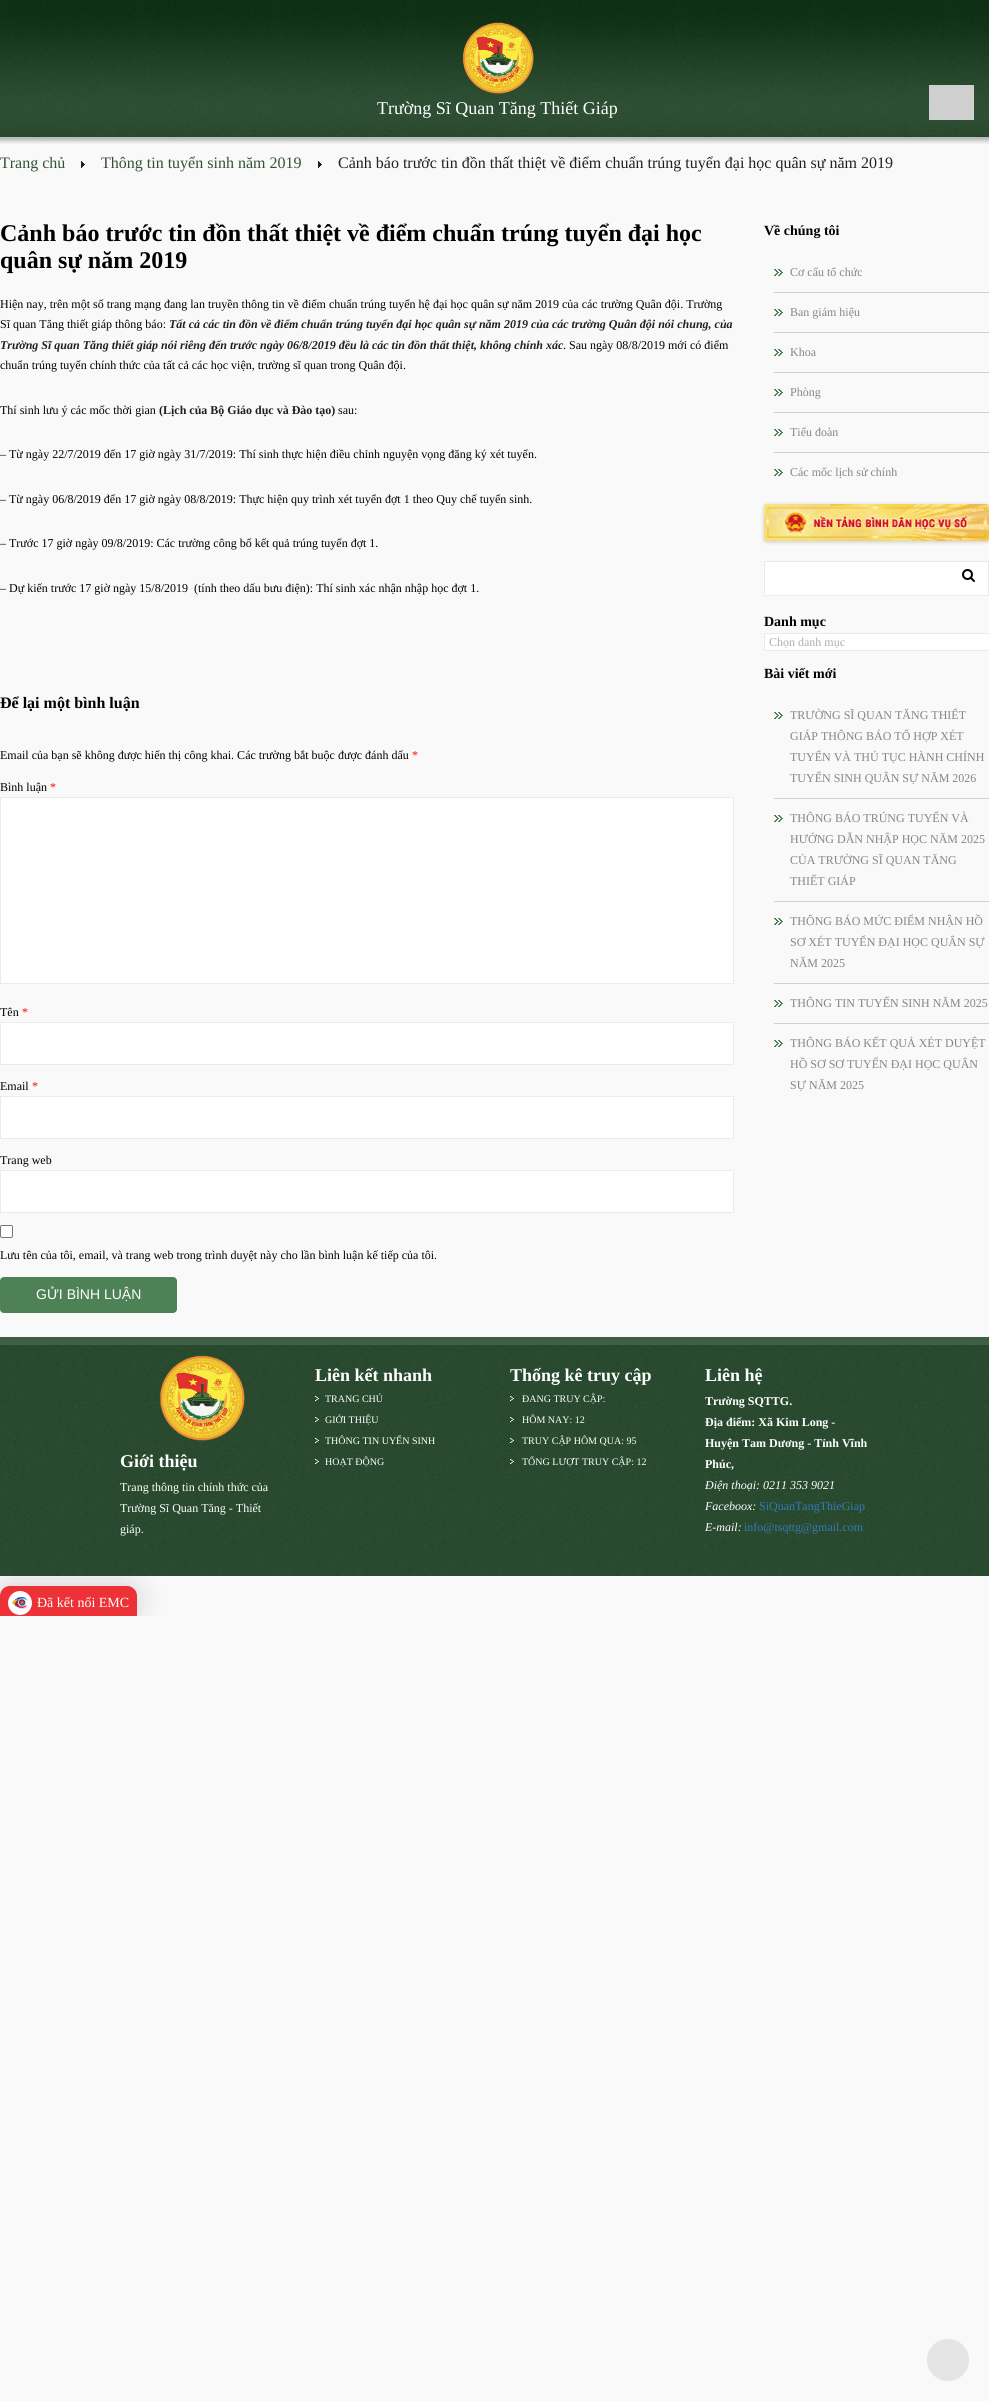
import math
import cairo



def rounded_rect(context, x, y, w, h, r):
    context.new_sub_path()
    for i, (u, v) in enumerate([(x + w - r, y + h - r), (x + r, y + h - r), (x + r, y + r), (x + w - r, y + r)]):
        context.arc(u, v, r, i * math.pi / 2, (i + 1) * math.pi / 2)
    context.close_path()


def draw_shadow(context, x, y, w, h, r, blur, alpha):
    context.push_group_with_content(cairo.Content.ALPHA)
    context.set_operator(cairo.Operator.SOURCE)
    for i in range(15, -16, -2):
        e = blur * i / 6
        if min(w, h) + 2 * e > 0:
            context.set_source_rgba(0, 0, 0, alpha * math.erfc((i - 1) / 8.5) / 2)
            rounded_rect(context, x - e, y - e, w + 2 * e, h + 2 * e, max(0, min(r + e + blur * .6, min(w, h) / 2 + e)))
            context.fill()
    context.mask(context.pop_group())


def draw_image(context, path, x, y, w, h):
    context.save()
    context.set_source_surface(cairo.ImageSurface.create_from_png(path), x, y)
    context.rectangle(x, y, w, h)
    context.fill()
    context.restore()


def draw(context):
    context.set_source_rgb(249 / 255, 249 / 255, 249 / 255)
    context.paint()
    draw_image(context, "images/1.png", 0, 0, 989, 137)
    draw_image(context, "images/2.png", 462, 22, 72, 72)
    context.set_source_rgb(207 / 255, 207 / 255, 207 / 255)
    context.rectangle(929, 85, 45, 35)
    context.fill()
    draw_image(context, "images/3.png", 0, 137, 989, 7)
    draw_image(context, "images/4.png", 81, 161, 4, 7)
    draw_image(context, "images/4.png", 318, 161, 4, 7)
    context.set_source_rgb(1, 1, 1)
    context.rectangle(0.5, 797.5, 733, 186)
    context.fill_preserve()
    context.set_source_rgb(235 / 255, 235 / 255, 235 / 255)
    context.set_line_width(1)
    context.stroke()
    context.set_source_rgb(1, 1, 1)
    context.rectangle(0.5, 1022.5, 733, 42)
    context.fill_preserve()
    context.set_source_rgb(235 / 255, 235 / 255, 235 / 255)
    context.stroke()
    context.set_source_rgb(1, 1, 1)
    context.rectangle(0.5, 1096.5, 733, 42)
    context.fill_preserve()
    context.set_source_rgb(235 / 255, 235 / 255, 235 / 255)
    context.stroke()
    context.set_source_rgb(1, 1, 1)
    context.rectangle(0.5, 1170.5, 733, 42)
    context.fill_preserve()
    context.set_source_rgb(235 / 255, 235 / 255, 235 / 255)
    context.stroke()
    context.set_source_rgb(1, 1, 1)
    rounded_rect(context, 0.5, 1225.5, 12, 12, 1.5)
    context.fill_preserve()
    context.set_source_rgb(118 / 255, 118 / 255, 118 / 255)
    context.stroke()
    context.set_source_rgb(78 / 255, 129 / 255, 86 / 255)
    rounded_rect(context, 0, 1277, 177, 36, 4)
    context.fill()
    draw_image(context, "images/5.png", 774, 269, 9, 7)
    draw_image(context, "images/5.png", 774, 309, 9, 7)
    context.set_source_rgb(209 / 255, 209 / 255, 209 / 255)
    context.rectangle(774, 292, 215, 1)
    context.fill()
    draw_image(context, "images/5.png", 774, 349, 9, 7)
    context.rectangle(774, 332, 215, 1)
    context.fill()
    draw_image(context, "images/5.png", 774, 389, 9, 7)
    context.rectangle(774, 372, 215, 1)
    context.fill()
    draw_image(context, "images/5.png", 774, 429, 9, 7)
    context.rectangle(774, 412, 215, 1)
    context.fill()
    draw_image(context, "images/5.png", 774, 469, 9, 7)
    context.rectangle(774, 452, 215, 1)
    context.fill()
    context.set_source_rgb(0, 0, 0)
    draw_shadow(context, 764, 505, 225, 37, 3, 2, 0.2)
    draw_image(context, "images/6.png", 764, 504, 225, 37)
    context.set_source_rgb(1, 1, 1)
    context.rectangle(764.5, 561.5, 224, 34)
    context.fill_preserve()
    context.set_source_rgb(235 / 255, 235 / 255, 235 / 255)
    context.stroke()
    draw_image(context, "images/7.png", 962, 569, 13, 13)
    context.set_source_rgb(1, 1, 1)
    context.rectangle(764.5, 633.5, 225, 17)
    context.fill_preserve()
    context.set_source_rgb(235 / 255, 235 / 255, 235 / 255)
    context.stroke()
    draw_image(context, "images/5.png", 774, 712, 9, 7)
    draw_image(context, "images/5.png", 774, 815, 9, 7)
    context.set_source_rgb(209 / 255, 209 / 255, 209 / 255)
    context.rectangle(774, 798, 215, 1)
    context.fill()
    draw_image(context, "images/5.png", 774, 918, 9, 7)
    context.rectangle(774, 901, 215, 1)
    context.fill()
    draw_image(context, "images/5.png", 774, 1000, 9, 7)
    context.rectangle(774, 983, 215, 1)
    context.fill()
    draw_image(context, "images/5.png", 774, 1040, 9, 7)
    context.rectangle(774, 1023, 215, 1)
    context.fill()
    context.save()
    context.rectangle(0, 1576, 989, 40)
    context.clip()
    context.set_source_rgb(0, 0, 0)
    draw_shadow(context, 0, 1585, 137, 34, 10, 15, 0.15)
    context.restore()
    draw_image(context, "images/8.png", 0, 1345, 989, 231)
    draw_image(context, "images/9.png", 0, 1337, 989, 8)
    draw_image(context, "images/10.png", 160, 1355, 85, 86)
    draw_image(context, "images/11.png", 315, 1396, 4, 5)
    draw_image(context, "images/12.png", 315, 1417, 4, 5)
    draw_image(context, "images/13.png", 315, 1438, 4, 5)
    draw_image(context, "images/14.png", 315, 1459, 4, 5)
    draw_image(context, "images/15.png", 510, 1396, 4, 5)
    draw_image(context, "images/16.png", 510, 1417, 4, 5)
    draw_image(context, "images/17.png", 510, 1438, 4, 5)
    draw_image(context, "images/18.png", 510, 1459, 4, 5)
    context.set_source_rgb(236 / 255, 50 / 255, 55 / 255)
    context.new_path()
    context.move_to(10, 1586)
    context.line_to(127, 1586)
    context.curve_to(132.5, 1586, 137, 1590.5, 137, 1596)
    context.line_to(137, 1616)
    context.line_to(0, 1616)
    context.line_to(0, 1596)
    context.curve_to(0, 1590.5, 4.5, 1586, 10, 1586)
    context.close_path()
    context.fill()
    context.set_source_rgb(1, 1, 1)
    context.arc(20, 1603, 12, 0, 2 * math.pi)
    context.fill()
    draw_image(context, "images/19.png", 12, 1597, 16, 12)
    context.set_source_rgb(228 / 255, 228 / 255, 228 / 255)
    context.arc(948, 2360, 21, 0, 2 * math.pi)
    context.fill()
    context.select_font_face("Tinos")
    context.set_font_size(18)
    context.set_source_rgb(1, 1, 1)
    context.move_to(377, 114)
    context.show_text("Trường Sĩ Quan Tăng Thiết Giáp")
    context.set_font_size(16)
    context.set_source_rgb(50 / 255, 82 / 255, 55 / 255)
    context.move_to(0, 168)
    context.show_text("Trang chủ")
    context.move_to(101, 168)
    context.show_text("Thông tin tuyển sinh năm 2019")
    context.set_source_rgb(32 / 255, 32 / 255, 32 / 255)
    context.move_to(338, 168)
    context.show_text("Cảnh báo trước tin đồn thất thiệt về điểm chuẩn trúng tuyển đại học quân sự năm 2019")
    context.select_font_face("Tinos", cairo.FontSlant.NORMAL, cairo.FontWeight.BOLD)
    context.set_font_size(24)
    context.set_source_rgb(0, 0, 0)
    context.move_to(0, 241)
    context.show_text("Cảnh báo trước tin đồn thất thiệt về điểm chuẩn trúng tuyển đại học")
    context.move_to(0, 268)
    context.show_text("quân sự năm 2019")
    context.select_font_face("Tinos")
    context.set_font_size(12)
    context.move_to(0, 308)
    context.show_text("Hiện nay, trên một số trang mạng đang lan truyền thông tin về điểm chuẩn trúng tuyển hệ đại học quân sự năm 2019 của các trường Quân đội. Trường")
    context.move_to(0, 328)
    context.show_text("Sĩ quan Tăng thiết giáp thông báo:")
    context.select_font_face("Tinos", cairo.FontSlant.ITALIC, cairo.FontWeight.BOLD)
    context.set_source_rgb(32 / 255, 32 / 255, 32 / 255)
    context.move_to(169, 328)
    context.show_text("Tất cả các tin đồn về điểm chuẩn trúng tuyển đại học quân sự năm 2019 của các trường Quân đội nói chung, của")
    context.move_to(0, 349)
    context.show_text("Trường Sĩ quan Tăng thiết giáp nói riêng đến trước ngày 06/8/2019 đều là các tin đồn thất thiệt, không chính xác")
    context.select_font_face("Tinos")
    context.set_source_rgb(0, 0, 0)
    context.move_to(563, 349)
    context.show_text(". Sau ngày 08/8/2019 mới có điểm")
    context.move_to(0, 369)
    context.show_text("chuẩn trúng tuyển chính thức của tất cả các học viện, trường sĩ quan trong Quân đội.")
    context.move_to(0, 414)
    context.show_text("Thí sinh lưu ý các mốc thời gian")
    context.select_font_face("Tinos", cairo.FontSlant.NORMAL, cairo.FontWeight.BOLD)
    context.set_source_rgb(32 / 255, 32 / 255, 32 / 255)
    context.move_to(159, 414)
    context.show_text("(Lịch của Bộ Giáo dục và Đào tạo)")
    context.select_font_face("Tinos")
    context.set_source_rgb(0, 0, 0)
    context.move_to(338, 414)
    context.show_text("sau:")
    context.move_to(0, 458)
    context.show_text("– Từ ngày 22/7/2019 đến 17 giờ ngày 31/7/2019: Thí sinh thực hiện điều chỉnh nguyện vọng đăng ký xét tuyển.")
    context.move_to(0, 503)
    context.show_text("– Từ ngày 06/8/2019 đến 17 giờ ngày 08/8/2019: Thực hiện quy trình xét tuyển đợt 1 theo Quy chế tuyển sinh.")
    context.move_to(0, 547)
    context.show_text("– Trước 17 giờ ngày 09/8/2019: Các trường công bố kết quả trúng tuyển đợt 1.")
    context.move_to(0, 592)
    context.show_text("– Dự kiến trước 17 giờ ngày 15/8/2019  (tính theo dấu bưu điện): Thí sinh xác nhận nhập học đợt 1.")
    context.select_font_face("Tinos", cairo.FontSlant.NORMAL, cairo.FontWeight.BOLD)
    context.set_font_size(16)
    context.move_to(0, 708)
    context.show_text("Để lại một bình luận")
    context.select_font_face("Tinos")
    context.set_font_size(12)
    context.move_to(0, 759)
    context.show_text("Email của bạn sẽ không được hiển thị công khai. Các trường bắt buộc được đánh dấu")
    context.set_source_rgb(1, 0, 0)
    context.move_to(412, 759)
    context.show_text("*")
    context.set_source_rgb(0, 0, 0)
    context.move_to(0, 791)
    context.show_text("Bình luận")
    context.set_source_rgb(1, 0, 0)
    context.move_to(50, 791)
    context.show_text("*")
    context.set_source_rgb(0, 0, 0)
    context.move_to(0, 1016)
    context.show_text("Tên")
    context.set_source_rgb(1, 0, 0)
    context.move_to(22, 1016)
    context.show_text("*")
    context.set_source_rgb(0, 0, 0)
    context.move_to(0, 1090)
    context.show_text("Email")
    context.set_source_rgb(1, 0, 0)
    context.move_to(32, 1090)
    context.show_text("*")
    context.set_source_rgb(0, 0, 0)
    context.move_to(0, 1164)
    context.show_text("Trang web")
    context.move_to(0, 1259)
    context.show_text("Lưu tên của tôi, email, và trang web trong trình duyệt này cho lần bình luận kế tiếp của tôi.")
    context.select_font_face("Liberation Sans")
    context.set_font_size(14)
    context.set_source_rgb(1, 1, 1)
    context.move_to(36, 1299)
    context.show_text("GỬI BÌNH LUẬN")
    context.select_font_face("Tinos", cairo.FontSlant.NORMAL, cairo.FontWeight.BOLD)
    context.set_source_rgb(0, 0, 0)
    context.move_to(764, 235)
    context.show_text("Về chúng tôi")
    context.select_font_face("Tinos")
    context.set_font_size(12)
    context.set_source_rgb(131 / 255, 134 / 255, 138 / 255)
    context.move_to(790, 276)
    context.show_text("Cơ cấu tổ chức")
    context.move_to(790, 316)
    context.show_text("Ban giám hiệu")
    context.move_to(790, 356)
    context.show_text("Khoa")
    context.move_to(790, 396)
    context.show_text("Phòng")
    context.move_to(790, 436)
    context.show_text("Tiểu đoàn")
    context.move_to(790, 476)
    context.show_text("Các mốc lịch sử chính")
    context.select_font_face("Tinos", cairo.FontSlant.NORMAL, cairo.FontWeight.BOLD)
    context.set_font_size(14)
    context.set_source_rgb(0, 0, 0)
    context.move_to(764, 626)
    context.show_text("Danh mục")
    context.select_font_face("Tinos")
    context.set_font_size(12)
    context.set_source_rgb(173 / 255, 173 / 255, 173 / 255)
    context.move_to(769, 646)
    context.show_text("Chọn danh mục")
    context.select_font_face("Tinos", cairo.FontSlant.NORMAL, cairo.FontWeight.BOLD)
    context.set_font_size(14)
    context.set_source_rgb(0, 0, 0)
    context.move_to(764, 678)
    context.show_text("Bài viết mới")
    context.select_font_face("Tinos")
    context.set_font_size(12)
    context.set_source_rgb(131 / 255, 134 / 255, 138 / 255)
    context.move_to(790, 719)
    context.show_text("TRƯỜNG SĨ QUAN TĂNG THIẾT")
    context.move_to(790, 740)
    context.show_text("GIÁP THÔNG BÁO TỔ HỢP XÉT")
    context.move_to(790, 761)
    context.show_text("TUYỂN VÀ THỦ TỤC HÀNH CHÍNH")
    context.move_to(790, 782)
    context.show_text("TUYỂN SINH QUÂN SỰ NĂM 2026")
    context.move_to(790, 822)
    context.show_text("THÔNG BÁO TRÚNG TUYỂN VÀ")
    context.move_to(790, 843)
    context.show_text("HƯỚNG DẪN NHẬP HỌC NĂM 2025")
    context.move_to(790, 864)
    context.show_text("CỦA TRƯỜNG SĨ QUAN TĂNG")
    context.move_to(790, 885)
    context.show_text("THIẾT GIÁP")
    context.move_to(790, 925)
    context.show_text("THÔNG BÁO MỨC ĐIỂM NHẬN HỒ")
    context.move_to(790, 946)
    context.show_text("SƠ XÉT TUYỂN ĐẠI HỌC QUÂN SỰ")
    context.move_to(790, 967)
    context.show_text("NĂM 2025")
    context.move_to(790, 1007)
    context.show_text("THÔNG TIN TUYỂN SINH NĂM 2025")
    context.move_to(790, 1047)
    context.show_text("THÔNG BÁO KẾT QUẢ XÉT DUYỆT")
    context.move_to(790, 1068)
    context.show_text("HỒ SƠ SƠ TUYỂN ĐẠI HỌC QUÂN")
    context.move_to(790, 1089)
    context.show_text("SỰ NĂM 2025")
    context.select_font_face("Tinos", cairo.FontSlant.NORMAL, cairo.FontWeight.BOLD)
    context.set_font_size(18)
    context.set_source_rgb(1, 1, 1)
    context.move_to(120, 1467)
    context.show_text("Giới thiệu")
    context.select_font_face("Tinos")
    context.set_font_size(12)
    context.move_to(120, 1491)
    context.show_text("Trang thông tin chính thức của")
    context.move_to(120, 1512)
    context.show_text("Trường Sĩ Quan Tăng - Thiết")
    context.move_to(120, 1533)
    context.show_text("giáp.")
    context.select_font_face("Tinos", cairo.FontSlant.NORMAL, cairo.FontWeight.BOLD)
    context.set_font_size(18)
    context.move_to(315, 1381)
    context.show_text("Liên kết nhanh")
    context.select_font_face("Tinos")
    context.set_font_size(10)
    context.move_to(325, 1402)
    context.show_text("TRANG CHỦ")
    context.move_to(325, 1423)
    context.show_text("GIỚI THIỆU")
    context.move_to(325, 1444)
    context.show_text("THÔNG TIN UYỂN SINH")
    context.move_to(325, 1465)
    context.show_text("HOẠT ĐỘNG")
    context.select_font_face("Tinos", cairo.FontSlant.NORMAL, cairo.FontWeight.BOLD)
    context.set_font_size(18)
    context.move_to(510, 1381)
    context.show_text("Thống kê truy cập")
    context.select_font_face("Tinos")
    context.set_font_size(10)
    context.move_to(522, 1402)
    context.show_text("ĐANG TRUY CẬP:")
    context.move_to(522, 1423)
    context.show_text("HÔM NAY: 12")
    context.move_to(522, 1444)
    context.show_text("TRUY CẬP HÔM QUA: 95")
    context.move_to(522, 1465)
    context.show_text("TỔNG LƯỢT TRUY CẬP: 12")
    context.select_font_face("Tinos", cairo.FontSlant.NORMAL, cairo.FontWeight.BOLD)
    context.set_font_size(18)
    context.move_to(705, 1381)
    context.show_text("Liên hệ")
    context.set_font_size(12)
    context.move_to(705, 1405)
    context.show_text("Trường SQTTG.")
    context.move_to(705, 1426)
    context.show_text("Địa điểm: Xã Kim Long -")
    context.move_to(705, 1447)
    context.show_text("Huyện Tam Dương - Tỉnh Vĩnh")
    context.move_to(705, 1468)
    context.show_text("Phúc,")
    context.select_font_face("Tinos", cairo.FontSlant.ITALIC)
    context.move_to(705, 1489)
    context.show_text("Điện thoại: 0211 353 9021")
    context.move_to(705, 1510)
    context.show_text("Faceboox:")
    context.select_font_face("Tinos")
    context.set_source_rgb(51 / 255, 122 / 255, 183 / 255)
    context.move_to(759, 1510)
    context.show_text("SiQuanTangThieGiap")
    context.select_font_face("Tinos", cairo.FontSlant.ITALIC)
    context.set_source_rgb(1, 1, 1)
    context.move_to(705, 1531)
    context.show_text("E-mail:")
    context.select_font_face("Tinos")
    context.set_source_rgb(51 / 255, 122 / 255, 183 / 255)
    context.move_to(744, 1531)
    context.show_text("info@tsqttg@gmail.com")
    context.set_font_size(14)
    context.set_source_rgb(1, 1, 1)
    context.move_to(37, 1607)
    context.show_text("Đã kết nối EMC")


surface = cairo.ImageSurface(cairo.Format.RGB24, 989, 2401)
context = cairo.Context(surface)
options = cairo.FontOptions()
options.set_hint_metrics(cairo.HintMetrics.OFF)
options.set_hint_style(cairo.HintStyle.NONE)
context.set_font_options(options)
context.set_miter_limit(4)
draw(context)
surface.write_to_png("out.png")
